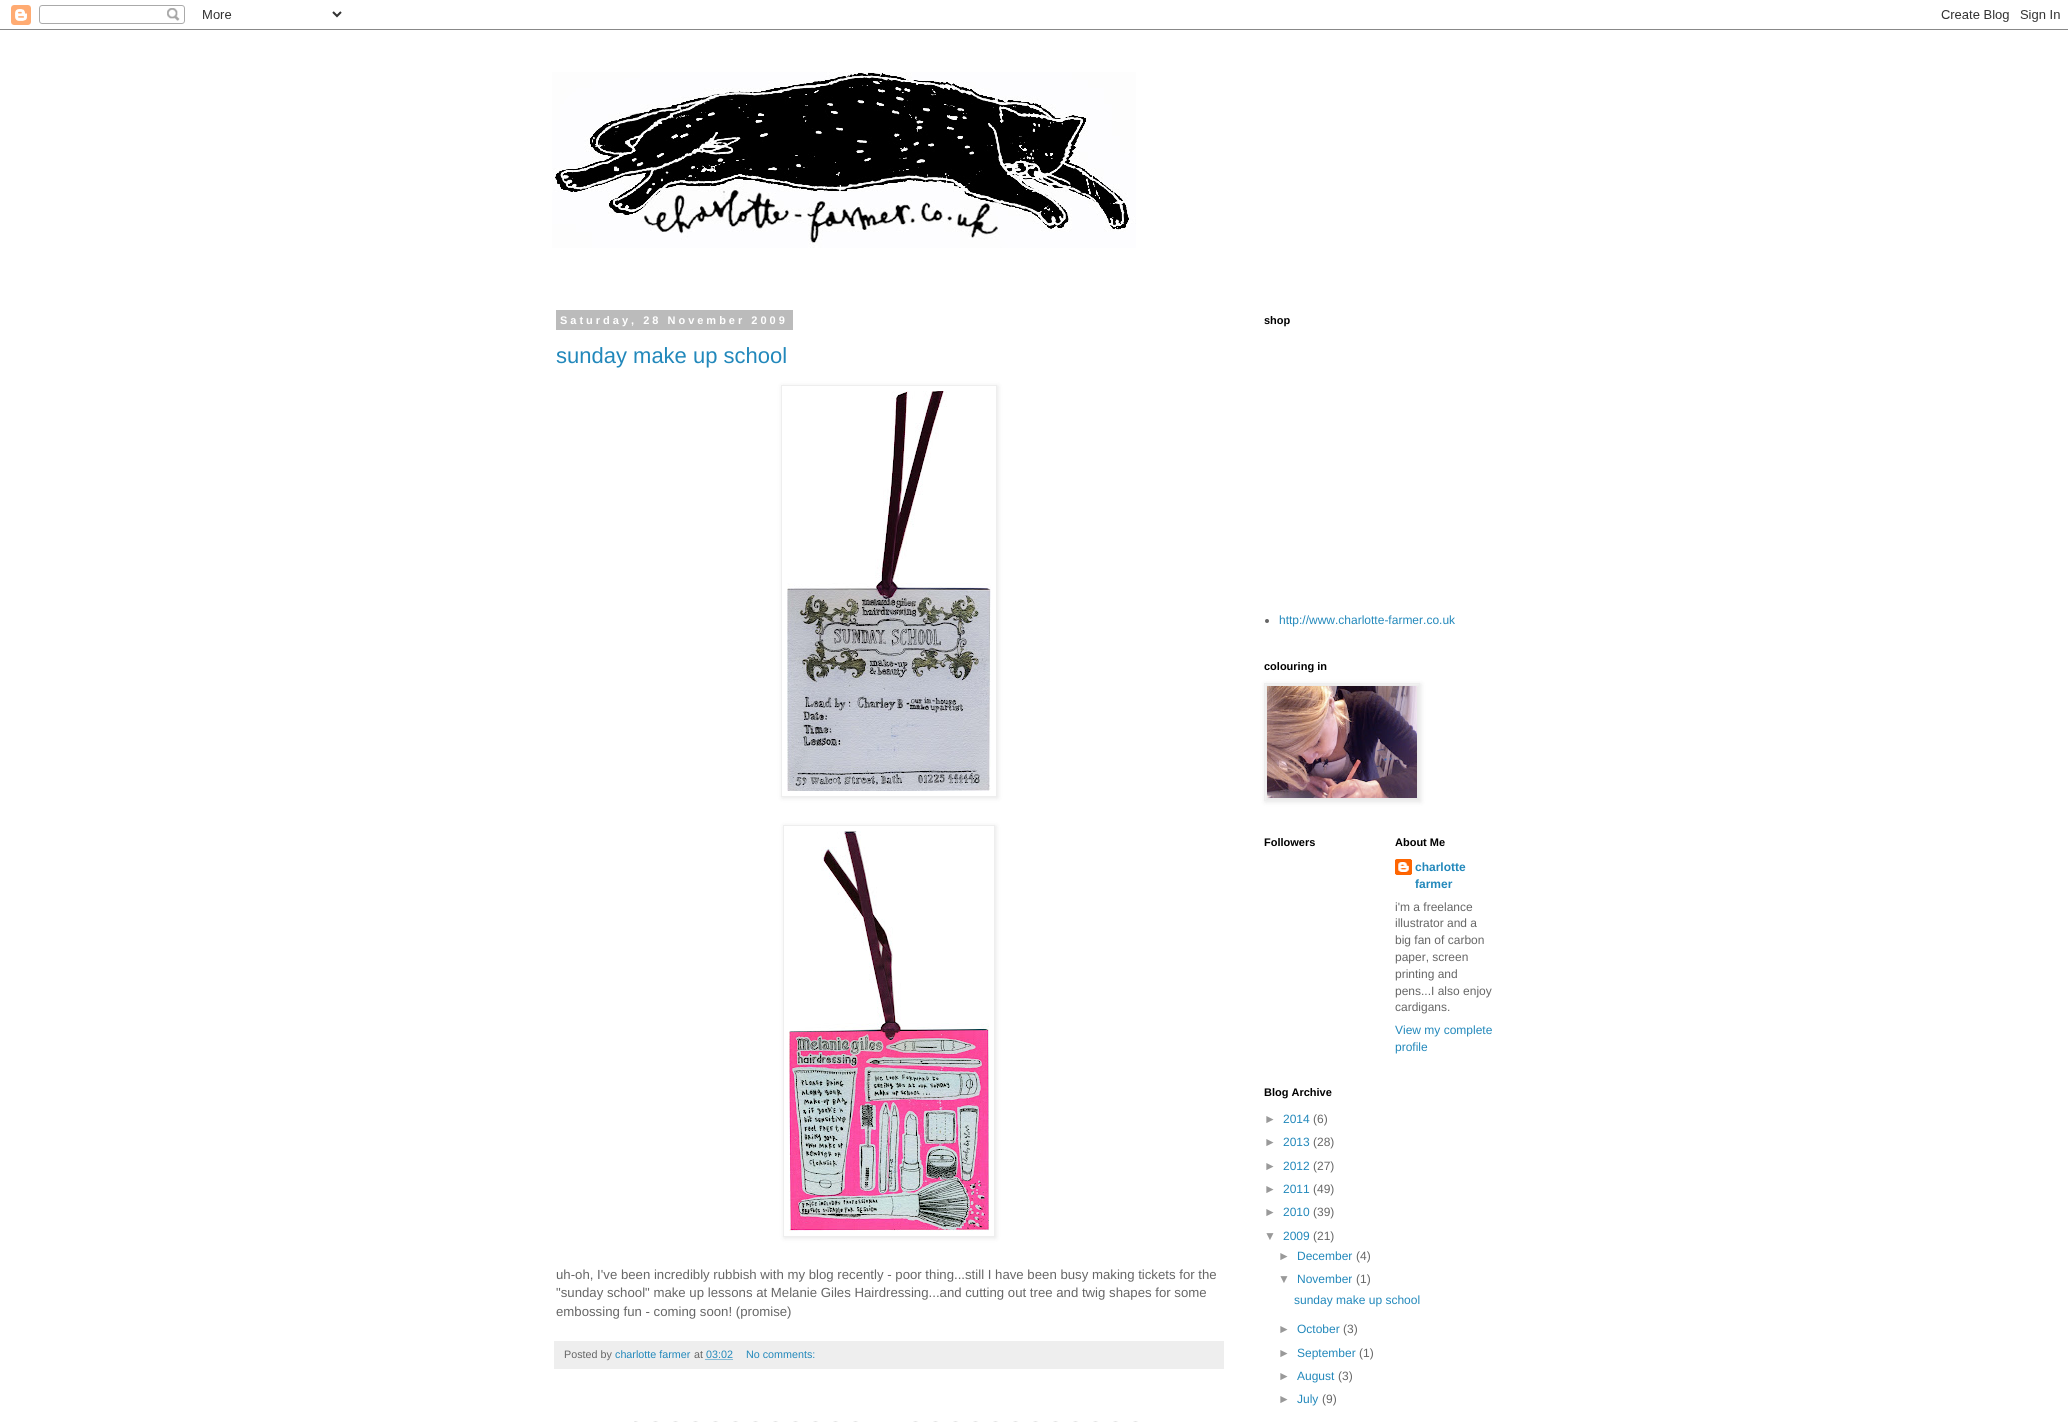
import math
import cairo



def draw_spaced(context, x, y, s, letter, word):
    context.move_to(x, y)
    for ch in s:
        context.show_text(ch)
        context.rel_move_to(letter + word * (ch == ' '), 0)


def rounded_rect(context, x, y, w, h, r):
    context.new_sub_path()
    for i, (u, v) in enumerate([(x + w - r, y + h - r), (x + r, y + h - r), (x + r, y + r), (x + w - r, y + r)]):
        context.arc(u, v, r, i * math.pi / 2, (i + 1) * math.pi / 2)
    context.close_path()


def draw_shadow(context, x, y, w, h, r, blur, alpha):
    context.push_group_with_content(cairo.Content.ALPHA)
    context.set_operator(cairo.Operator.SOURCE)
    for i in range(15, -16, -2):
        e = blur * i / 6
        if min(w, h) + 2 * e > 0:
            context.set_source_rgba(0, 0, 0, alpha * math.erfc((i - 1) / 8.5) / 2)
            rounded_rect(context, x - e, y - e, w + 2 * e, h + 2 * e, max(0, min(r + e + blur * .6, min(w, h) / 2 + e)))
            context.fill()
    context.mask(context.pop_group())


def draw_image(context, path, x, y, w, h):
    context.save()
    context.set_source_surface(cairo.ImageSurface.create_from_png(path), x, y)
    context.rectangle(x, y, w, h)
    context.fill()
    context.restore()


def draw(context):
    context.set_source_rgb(1, 1, 1)
    context.paint()
    draw_image(context, "images/1.png", 0, 5, 2068, 25)
    draw_image(context, "images/2.png", 552, 72, 584, 176)
    context.set_source_rgb(187 / 255, 187 / 255, 187 / 255)
    context.rectangle(556, 310, 237, 20)
    context.fill()
    context.save()
    context.set_fill_rule(cairo.FillRule.EVEN_ODD)
    context.new_path()
    context.move_to(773, 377)
    context.line_to(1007, 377)
    context.line_to(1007, 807)
    context.line_to(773, 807)
    context.close_path()
    context.move_to(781, 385)
    context.line_to(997, 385)
    context.line_to(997, 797)
    context.line_to(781, 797)
    context.close_path()
    context.clip()
    context.set_source_rgb(0, 0, 0)
    draw_shadow(context, 782, 386, 216, 412, 0, 2.5, 0.1)
    context.restore()
    context.rectangle(781.5, 385.5, 215, 411)
    context.set_source_rgb(238 / 255, 238 / 255, 238 / 255)
    context.set_line_width(1)
    context.stroke()
    draw_image(context, "images/3.png", 787, 391, 204, 400)
    context.save()
    context.set_fill_rule(cairo.FillRule.EVEN_ODD)
    context.new_path()
    context.move_to(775, 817)
    context.line_to(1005, 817)
    context.line_to(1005, 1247)
    context.line_to(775, 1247)
    context.close_path()
    context.move_to(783, 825)
    context.line_to(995, 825)
    context.line_to(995, 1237)
    context.line_to(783, 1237)
    context.close_path()
    context.clip()
    context.set_source_rgb(0, 0, 0)
    draw_shadow(context, 784, 826, 212, 412, 0, 2.5, 0.1)
    context.restore()
    context.rectangle(783.5, 825.5, 211, 411)
    context.stroke()
    draw_image(context, "images/4.png", 789, 831, 200, 400)
    context.rectangle(554, 1341, 670, 28)
    context.fill()
    context.new_path()
    context.move_to(705.5, 1359.5)
    context.line_to(732.5, 1359.5)
    context.set_source_rgb(34 / 255, 136 / 255, 187 / 255)
    context.set_dash([1, 1])
    context.stroke()
    draw_image(context, "images/5.png", 634, 1421, 504, 1)
    context.set_source_rgb(1, 1, 1)
    context.rectangle(871, 1421, 27, 1)
    context.fill()
    context.set_source_rgb(102 / 255, 102 / 255, 102 / 255)
    context.arc(1267, 621, 2, 0, 2 * math.pi)
    context.fill()
    context.set_source_rgb(0, 0, 0)
    draw_shadow(context, 1265, 684, 156, 118, 0, 2.5, 0.1)
    context.rectangle(1264.5, 683.5, 155, 117)
    context.set_source_rgb(238 / 255, 238 / 255, 238 / 255)
    context.set_dash([])
    context.stroke()
    draw_image(context, "images/6.png", 1267, 686, 150, 112)
    draw_image(context, "images/7.png", 1395, 859, 17, 16)
    context.select_font_face("Liberation Sans", cairo.FontSlant.NORMAL, cairo.FontWeight.BOLD)
    context.set_font_size(11)
    context.set_source_rgb(1, 1, 1)
    draw_spaced(context, 560, 324, "Saturday, 28 November 2009", 3, 0)
    context.select_font_face("Liberation Sans")
    context.set_font_size(22)
    context.set_source_rgb(34 / 255, 136 / 255, 187 / 255)
    context.move_to(556, 363)
    context.show_text("sunday make up school")
    context.set_font_size(13.2)
    context.set_source_rgb(102 / 255, 102 / 255, 102 / 255)
    context.move_to(556, 1279)
    context.show_text("uh-oh, I've been incredibly rubbish with my blog recently - poor thing...still I have been busy making tickets for the")
    context.move_to(556, 1297)
    context.show_text("\"sunday school\" make up lessons at Melanie Giles Hairdressing...and cutting out tree and twig shapes for some")
    context.move_to(556, 1316)
    context.show_text("embossing fun - coming soon! (promise)")
    context.set_font_size(10.75)
    context.move_to(564, 1358)
    context.show_text("Posted by")
    context.set_source_rgb(34 / 255, 136 / 255, 187 / 255)
    context.move_to(615, 1358)
    context.show_text("charlotte farmer")
    context.set_source_rgb(102 / 255, 102 / 255, 102 / 255)
    context.move_to(694, 1358)
    context.show_text("at")
    context.set_source_rgb(34 / 255, 136 / 255, 187 / 255)
    context.move_to(706, 1358)
    context.show_text("03:02")
    context.move_to(746, 1358)
    context.show_text("No comments:")
    context.select_font_face("Liberation Sans", cairo.FontSlant.NORMAL, cairo.FontWeight.BOLD)
    context.set_font_size(11)
    context.set_source_rgb(0, 0, 0)
    context.move_to(1264, 324)
    context.show_text("shop")
    context.select_font_face("Liberation Sans")
    context.set_font_size(12)
    context.set_source_rgb(34 / 255, 136 / 255, 187 / 255)
    context.move_to(1279, 624)
    context.show_text("http://www.charlotte-farmer.co.uk")
    context.select_font_face("Liberation Sans", cairo.FontSlant.NORMAL, cairo.FontWeight.BOLD)
    context.set_font_size(11)
    context.set_source_rgb(0, 0, 0)
    context.move_to(1264, 670)
    context.show_text("colouring in")
    context.move_to(1264, 846)
    context.show_text("Followers")
    context.move_to(1395, 846)
    context.show_text("About Me")
    context.set_font_size(12)
    context.set_source_rgb(34 / 255, 136 / 255, 187 / 255)
    context.move_to(1415, 871)
    context.show_text("charlotte")
    context.move_to(1415, 888)
    context.show_text("farmer")
    context.select_font_face("Liberation Sans")
    context.set_source_rgb(102 / 255, 102 / 255, 102 / 255)
    context.move_to(1395, 911)
    context.show_text("i'm a freelance")
    context.move_to(1395, 927)
    context.show_text("illustrator and a")
    context.move_to(1395, 944)
    context.show_text("big fan of carbon")
    context.move_to(1395, 961)
    context.show_text("paper, screen")
    context.move_to(1395, 978)
    context.show_text("printing and")
    context.move_to(1395, 995)
    context.show_text("pens...I also enjoy")
    context.move_to(1395, 1011)
    context.show_text("cardigans.")
    context.set_source_rgb(34 / 255, 136 / 255, 187 / 255)
    context.move_to(1395, 1034)
    context.show_text("View my complete")
    context.move_to(1395, 1051)
    context.show_text("profile")
    context.select_font_face("Liberation Sans", cairo.FontSlant.NORMAL, cairo.FontWeight.BOLD)
    context.set_font_size(11)
    context.set_source_rgb(0, 0, 0)
    context.move_to(1264, 1096)
    context.show_text("Blog Archive")
    context.select_font_face("Liberation Sans")
    context.set_font_size(12)
    context.set_source_rgb(153 / 255, 153 / 255, 153 / 255)
    context.move_to(1264, 1123)
    context.show_text("►")
    context.set_source_rgb(34 / 255, 136 / 255, 187 / 255)
    context.move_to(1283, 1123)
    context.show_text("2014")
    context.set_source_rgb(102 / 255, 102 / 255, 102 / 255)
    context.move_to(1313, 1123)
    context.show_text("(6)")
    context.set_source_rgb(153 / 255, 153 / 255, 153 / 255)
    context.move_to(1264, 1146)
    context.show_text("►")
    context.set_source_rgb(34 / 255, 136 / 255, 187 / 255)
    context.move_to(1283, 1146)
    context.show_text("2013")
    context.set_source_rgb(102 / 255, 102 / 255, 102 / 255)
    context.move_to(1313, 1146)
    context.show_text("(28)")
    context.set_source_rgb(153 / 255, 153 / 255, 153 / 255)
    context.move_to(1264, 1170)
    context.show_text("►")
    context.set_source_rgb(34 / 255, 136 / 255, 187 / 255)
    context.move_to(1283, 1170)
    context.show_text("2012")
    context.set_source_rgb(102 / 255, 102 / 255, 102 / 255)
    context.move_to(1313, 1170)
    context.show_text("(27)")
    context.set_source_rgb(153 / 255, 153 / 255, 153 / 255)
    context.move_to(1264, 1193)
    context.show_text("►")
    context.set_source_rgb(34 / 255, 136 / 255, 187 / 255)
    context.move_to(1283, 1193)
    context.show_text("2011")
    context.set_source_rgb(102 / 255, 102 / 255, 102 / 255)
    context.move_to(1313, 1193)
    context.show_text("(49)")
    context.set_source_rgb(153 / 255, 153 / 255, 153 / 255)
    context.move_to(1264, 1216)
    context.show_text("►")
    context.set_source_rgb(34 / 255, 136 / 255, 187 / 255)
    context.move_to(1283, 1216)
    context.show_text("2010")
    context.set_source_rgb(102 / 255, 102 / 255, 102 / 255)
    context.move_to(1313, 1216)
    context.show_text("(39)")
    context.set_source_rgb(153 / 255, 153 / 255, 153 / 255)
    context.move_to(1264, 1240)
    context.show_text("▼")
    context.set_source_rgb(34 / 255, 136 / 255, 187 / 255)
    context.move_to(1283, 1240)
    context.show_text("2009")
    context.set_source_rgb(102 / 255, 102 / 255, 102 / 255)
    context.move_to(1313, 1240)
    context.show_text("(21)")
    context.set_source_rgb(153 / 255, 153 / 255, 153 / 255)
    context.move_to(1278, 1260)
    context.show_text("►")
    context.set_source_rgb(34 / 255, 136 / 255, 187 / 255)
    context.move_to(1297, 1260)
    context.show_text("December")
    context.set_source_rgb(102 / 255, 102 / 255, 102 / 255)
    context.move_to(1356, 1260)
    context.show_text("(4)")
    context.set_source_rgb(153 / 255, 153 / 255, 153 / 255)
    context.move_to(1278, 1283)
    context.show_text("▼")
    context.set_source_rgb(34 / 255, 136 / 255, 187 / 255)
    context.move_to(1297, 1283)
    context.show_text("November")
    context.set_source_rgb(102 / 255, 102 / 255, 102 / 255)
    context.move_to(1356, 1283)
    context.show_text("(1)")
    context.set_source_rgb(34 / 255, 136 / 255, 187 / 255)
    context.move_to(1294, 1304)
    context.show_text("sunday make up school")
    context.set_source_rgb(153 / 255, 153 / 255, 153 / 255)
    context.move_to(1278, 1333)
    context.show_text("►")
    context.set_source_rgb(34 / 255, 136 / 255, 187 / 255)
    context.move_to(1297, 1333)
    context.show_text("October")
    context.set_source_rgb(102 / 255, 102 / 255, 102 / 255)
    context.move_to(1343, 1333)
    context.show_text("(3)")
    context.set_source_rgb(153 / 255, 153 / 255, 153 / 255)
    context.move_to(1278, 1357)
    context.show_text("►")
    context.set_source_rgb(34 / 255, 136 / 255, 187 / 255)
    context.move_to(1297, 1357)
    context.show_text("September")
    context.set_source_rgb(102 / 255, 102 / 255, 102 / 255)
    context.move_to(1359, 1357)
    context.show_text("(1)")
    context.set_source_rgb(153 / 255, 153 / 255, 153 / 255)
    context.move_to(1278, 1380)
    context.show_text("►")
    context.set_source_rgb(34 / 255, 136 / 255, 187 / 255)
    context.move_to(1297, 1380)
    context.show_text("August")
    context.set_source_rgb(102 / 255, 102 / 255, 102 / 255)
    context.move_to(1338, 1380)
    context.show_text("(3)")
    context.set_source_rgb(153 / 255, 153 / 255, 153 / 255)
    context.move_to(1278, 1403)
    context.show_text("►")
    context.set_source_rgb(34 / 255, 136 / 255, 187 / 255)
    context.move_to(1297, 1403)
    context.show_text("July")
    context.set_source_rgb(102 / 255, 102 / 255, 102 / 255)
    context.move_to(1322, 1403)
    context.show_text("(9)")


surface = cairo.ImageSurface(cairo.Format.RGB24, 2068, 1422)
context = cairo.Context(surface)
options = cairo.FontOptions()
options.set_hint_metrics(cairo.HintMetrics.OFF)
options.set_hint_style(cairo.HintStyle.NONE)
context.set_font_options(options)
context.set_miter_limit(4)
draw(context)
surface.write_to_png("out.png")
